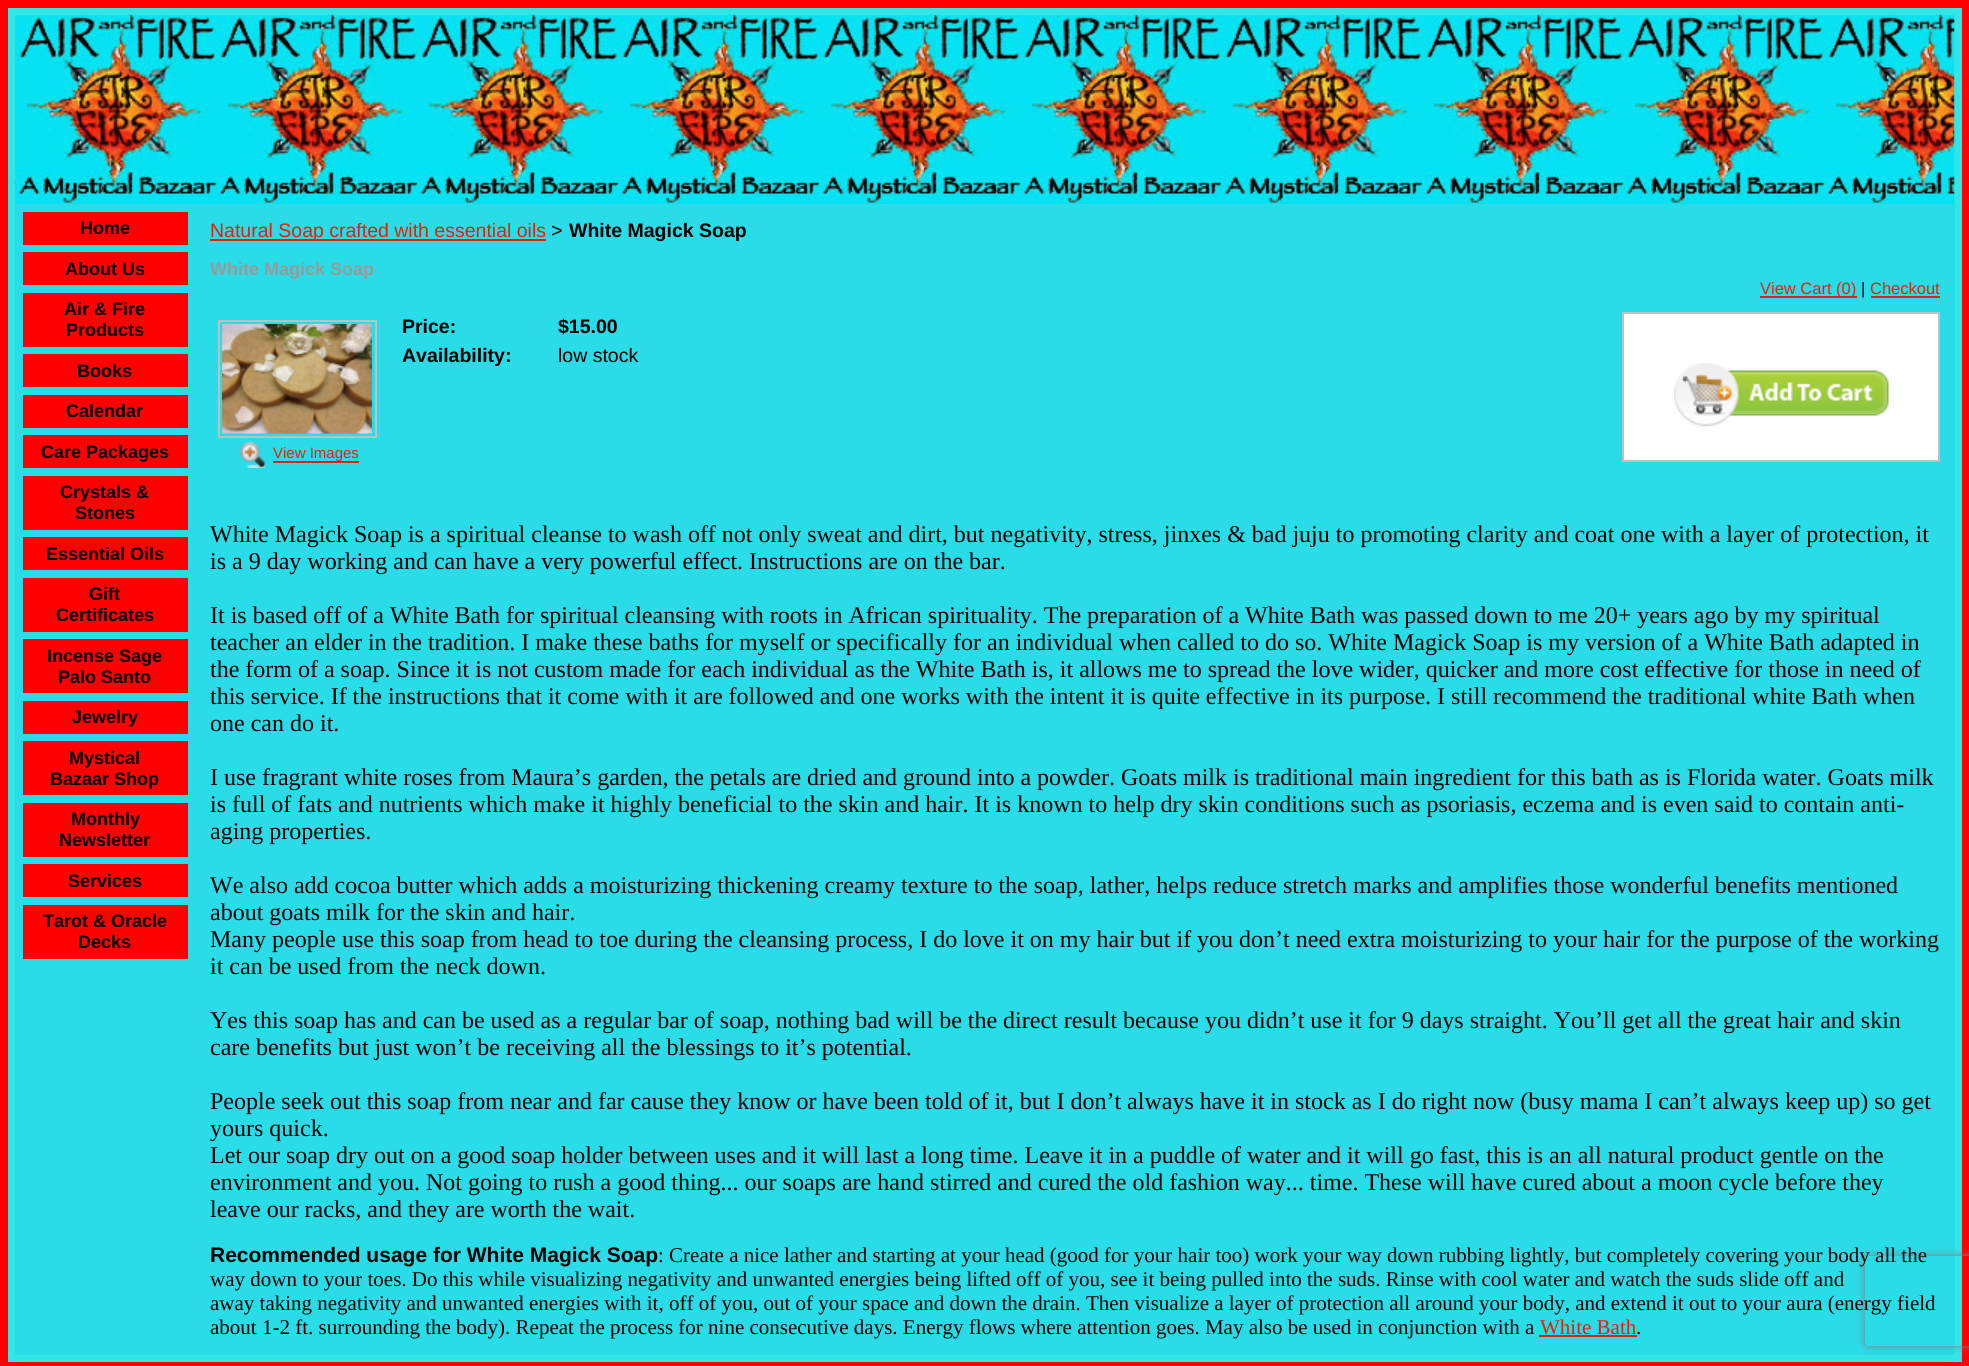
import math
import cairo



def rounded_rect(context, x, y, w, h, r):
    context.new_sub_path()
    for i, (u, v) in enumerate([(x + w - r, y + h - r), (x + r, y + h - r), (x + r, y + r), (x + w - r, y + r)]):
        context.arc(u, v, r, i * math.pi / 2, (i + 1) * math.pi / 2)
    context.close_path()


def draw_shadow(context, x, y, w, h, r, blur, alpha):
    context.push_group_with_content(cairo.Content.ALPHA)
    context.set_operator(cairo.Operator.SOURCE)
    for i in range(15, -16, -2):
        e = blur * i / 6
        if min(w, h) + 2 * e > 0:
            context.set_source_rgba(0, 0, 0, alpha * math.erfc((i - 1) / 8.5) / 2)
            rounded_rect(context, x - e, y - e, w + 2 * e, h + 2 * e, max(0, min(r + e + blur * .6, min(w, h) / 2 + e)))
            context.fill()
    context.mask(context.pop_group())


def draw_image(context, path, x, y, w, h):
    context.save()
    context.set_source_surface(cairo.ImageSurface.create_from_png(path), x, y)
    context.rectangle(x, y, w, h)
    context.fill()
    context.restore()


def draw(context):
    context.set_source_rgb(1, 0, 0)
    context.paint()
    context.set_source_rgb(51 / 255, 230 / 255, 230 / 255)
    context.rectangle(8, 8, 1954, 1354)
    context.fill()
    draw_image(context, "images/1.png", 15, 15, 1940, 189)
    context.set_source_rgb(42 / 255, 219 / 255, 232 / 255)
    context.rectangle(15, 204, 1940, 1151)
    context.fill()
    context.set_source_rgb(1, 0, 0)
    context.rectangle(23, 212, 165, 33)
    context.fill()
    context.rectangle(23, 252, 165, 33)
    context.fill()
    context.rectangle(23, 293, 165, 54)
    context.fill()
    context.rectangle(23, 354, 165, 33)
    context.fill()
    context.rectangle(23, 395, 165, 33)
    context.fill()
    context.rectangle(23, 435, 165, 33)
    context.fill()
    context.rectangle(23, 476, 165, 54)
    context.fill()
    context.rectangle(23, 537, 165, 33)
    context.fill()
    context.rectangle(23, 578, 165, 54)
    context.fill()
    context.rectangle(23, 639, 165, 54)
    context.fill()
    context.rectangle(23, 701, 165, 33)
    context.fill()
    context.rectangle(23, 741, 165, 54)
    context.fill()
    context.rectangle(23, 803, 165, 54)
    context.fill()
    context.rectangle(23, 864, 165, 33)
    context.fill()
    context.rectangle(23, 905, 165, 54)
    context.fill()
    context.set_source_rgb(227 / 255, 34 / 255, 4 / 255)
    context.rectangle(210, 239, 336, 2)
    context.fill()
    context.rectangle(1760, 296, 97, 2)
    context.fill()
    context.rectangle(1871, 296, 69, 2)
    context.fill()
    context.rectangle(219, 321, 157, 116)
    context.set_source_rgb(192 / 255, 192 / 255, 192 / 255)
    context.stroke()
    draw_image(context, "images/2.png", 222, 324, 150, 110)
    draw_image(context, "images/3.png", 239, 442, 27, 26)
    context.set_source_rgb(227 / 255, 34 / 255, 4 / 255)
    context.rectangle(273, 461, 86, 2)
    context.fill()
    context.set_source_rgb(1, 1, 1)
    context.rectangle(1623, 313, 316, 148)
    context.fill_preserve()
    context.set_source_rgb(192 / 255, 192 / 255, 192 / 255)
    context.stroke()
    draw_image(context, "images/4.png", 1674, 363, 215, 64)
    context.set_source_rgb(227 / 255, 34 / 255, 4 / 255)
    context.rectangle(1539, 1335, 98, 2)
    context.fill()
    context.save()
    context.set_fill_rule(cairo.FillRule.EVEN_ODD)
    context.new_path()
    context.move_to(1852, 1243)
    context.line_to(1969, 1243)
    context.line_to(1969, 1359)
    context.line_to(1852, 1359)
    context.close_path()
    context.move_to(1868, 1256)
    context.line_to(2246, 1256)
    context.curve_to(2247.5, 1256, 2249, 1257.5, 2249, 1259)
    context.line_to(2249, 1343)
    context.curve_to(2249, 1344.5, 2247.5, 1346, 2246, 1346)
    context.line_to(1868, 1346)
    context.curve_to(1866.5, 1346, 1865, 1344.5, 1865, 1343)
    context.line_to(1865, 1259)
    context.curve_to(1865, 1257.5, 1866.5, 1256, 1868, 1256)
    context.close_path()
    context.clip()
    context.set_source_rgb(128 / 255, 128 / 255, 128 / 255)
    draw_shadow(context, 1865, 1256, 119, 90, 3, 4, 1)
    context.restore()
    context.select_font_face("Liberation Sans", cairo.FontSlant.NORMAL, cairo.FontWeight.BOLD)
    context.set_font_size(18)
    context.set_source_rgb(0, 0, 0)
    context.move_to(80, 234)
    context.show_text("Home")
    context.move_to(65, 275)
    context.show_text("About Us")
    context.move_to(64, 315)
    context.show_text("Air & Fire")
    context.move_to(66, 336)
    context.show_text("Products")
    context.move_to(77, 377)
    context.show_text("Books")
    context.move_to(66, 417)
    context.show_text("Calendar")
    context.move_to(41, 458)
    context.show_text("Care Packages")
    context.move_to(60, 498)
    context.show_text("Crystals &")
    context.move_to(75, 519)
    context.show_text("Stones")
    context.move_to(46, 560)
    context.show_text("Essential Oils")
    context.move_to(89, 600)
    context.show_text("Gift")
    context.move_to(56, 621)
    context.show_text("Certificates")
    context.move_to(47, 662)
    context.show_text("Incense Sage")
    context.move_to(58, 683)
    context.show_text("Palo Santo")
    context.move_to(72, 723)
    context.show_text("Jewelry")
    context.move_to(69, 764)
    context.show_text("Mystical")
    context.move_to(50, 785)
    context.show_text("Bazaar Shop")
    context.move_to(71, 825)
    context.show_text("Monthly")
    context.move_to(59, 846)
    context.show_text("Newsletter")
    context.move_to(68, 887)
    context.show_text("Services")
    context.move_to(43, 927)
    context.show_text("Tarot & Oracle")
    context.move_to(78, 948)
    context.show_text("Decks")
    context.select_font_face("Liberation Sans")
    context.set_font_size(19.5)
    context.set_source_rgb(227 / 255, 34 / 255, 4 / 255)
    context.move_to(210, 237)
    context.show_text("Natural Soap crafted with essential oils")
    context.select_font_face("Liberation Mono")
    context.set_source_rgb(0, 0, 0)
    context.move_to(551, 237)
    context.show_text(">")
    context.select_font_face("Liberation Sans", cairo.FontSlant.NORMAL, cairo.FontWeight.BOLD)
    context.move_to(569, 237)
    context.show_text("White Magick Soap")
    context.set_font_size(18)
    context.set_source_rgb(153 / 255, 153 / 255, 153 / 255)
    context.move_to(210, 275)
    context.show_text("White Magick Soap")
    context.select_font_face("Liberation Sans")
    context.set_font_size(16.5)
    context.set_source_rgb(227 / 255, 34 / 255, 4 / 255)
    context.move_to(1760, 294)
    context.show_text("View Cart (0)")
    context.set_source_rgb(0, 0, 0)
    context.move_to(1861, 294)
    context.show_text("|")
    context.set_source_rgb(227 / 255, 34 / 255, 4 / 255)
    context.move_to(1870, 294)
    context.show_text("Checkout")
    context.select_font_face("Liberation Sans", cairo.FontSlant.NORMAL, cairo.FontWeight.BOLD)
    context.set_font_size(19.5)
    context.set_source_rgb(0, 0, 0)
    context.move_to(402, 333)
    context.show_text("Price:")
    context.move_to(558, 333)
    context.show_text("$15.00")
    context.move_to(402, 362)
    context.show_text("Availability:")
    context.select_font_face("Liberation Sans")
    context.move_to(558, 362)
    context.show_text("low stock")
    context.set_font_size(15)
    context.set_source_rgb(227 / 255, 34 / 255, 4 / 255)
    context.move_to(273, 458)
    context.show_text("View Images")
    context.select_font_face("Liberation Serif")
    context.set_font_size(24)
    context.set_source_rgb(0, 0, 0)
    context.move_to(210, 542)
    context.show_text("White Magick Soap is a spiritual cleanse to wash off not only sweat and dirt, but negativity, stress, jinxes & bad juju to promoting clarity and coat one with a layer of protection, it")
    context.move_to(210, 569)
    context.show_text("is a 9 day working and can have a very powerful effect. Instructions are on the bar.")
    context.move_to(210, 623)
    context.show_text("It is based off of a White Bath for spiritual cleansing with roots in African spirituality. The preparation of a White Bath was passed down to me 20+ years ago by my spiritual")
    context.move_to(210, 650)
    context.show_text("teacher an elder in the tradition. I make these baths for myself or specifically for an individual when called to do so. White Magick Soap is my version of a White Bath adapted in")
    context.move_to(210, 677)
    context.show_text("the form of a soap. Since it is not custom made for each individual as the White Bath is, it allows me to spread the love wider, quicker and more cost effective for those in need of")
    context.move_to(210, 704)
    context.show_text("this service. If the instructions that it come with it are followed and one works with the intent it is quite effective in its purpose. I still recommend the traditional white Bath when")
    context.move_to(210, 731)
    context.show_text("one can do it.")
    context.move_to(210, 785)
    context.show_text("I use fragrant white roses from Maura’s garden, the petals are dried and ground into a powder. Goats milk is traditional main ingredient for this bath as is Florida water. Goats milk")
    context.move_to(210, 812)
    context.show_text("is full of fats and nutrients which make it highly beneficial to the skin and hair. It is known to help dry skin conditions such as psoriasis, eczema and is even said to contain anti-")
    context.move_to(210, 839)
    context.show_text("aging properties.")
    context.move_to(210, 893)
    context.show_text("We also add cocoa butter which adds a moisturizing thickening creamy texture to the soap, lather, helps reduce stretch marks and amplifies those wonderful benefits mentioned")
    context.move_to(210, 920)
    context.show_text("about goats milk for the skin and hair.")
    context.move_to(210, 947)
    context.show_text("Many people use this soap from head to toe during the cleansing process, I do love it on my hair but if you don’t need extra moisturizing to your hair for the purpose of the working")
    context.move_to(210, 974)
    context.show_text("it can be used from the neck down.")
    context.move_to(210, 1028)
    context.show_text("Yes this soap has and can be used as a regular bar of soap, nothing bad will be the direct result because you didn’t use it for 9 days straight. You’ll get all the great hair and skin")
    context.move_to(210, 1055)
    context.show_text("care benefits but just won’t be receiving all the blessings to it’s potential.")
    context.move_to(210, 1109)
    context.show_text("People seek out this soap from near and far cause they know or have been told of it, but I don’t always have it in stock as I do right now (busy mama I can’t always keep up) so get")
    context.move_to(210, 1136)
    context.show_text("yours quick.")
    context.move_to(210, 1163)
    context.show_text("Let our soap dry out on a good soap holder between uses and it will last a long time. Leave it in a puddle of water and it will go fast, this is an all natural product gentle on the")
    context.move_to(210, 1190)
    context.show_text("environment and you. Not going to rush a good thing... our soaps are hand stirred and cured the old fashion way... time. These will have cured about a moon cycle before they")
    context.move_to(210, 1217)
    context.show_text("leave our racks, and they are worth the wait.")
    context.select_font_face("Liberation Sans", cairo.FontSlant.NORMAL, cairo.FontWeight.BOLD)
    context.set_font_size(21)
    context.move_to(210, 1262)
    context.show_text("Recommended usage for White Magick Soap")
    context.select_font_face("Liberation Serif")
    context.move_to(658, 1262)
    context.show_text(": Create a nice lather and starting at your head (good for your hair too) work your way down rubbing lightly, but completely covering your body all the")
    context.move_to(210, 1286)
    context.show_text("way down to your toes. Do this while visualizing negativity and unwanted energies being lifted off of you, see it being pulled into the suds. Rinse with cool water and watch the suds slide off and")
    context.move_to(210, 1310)
    context.show_text("away taking negativity and unwanted energies with it, off of you, out of your space and down the drain. Then visualize a layer of protection all around your body, and extend it out to your aura (energy field")
    context.move_to(210, 1334)
    context.show_text("about 1-2 ft. surrounding the body). Repeat the process for nine consecutive days. Energy flows where attention goes. May also be used in conjunction with a")
    context.set_source_rgb(227 / 255, 34 / 255, 4 / 255)
    context.move_to(1540, 1334)
    context.show_text("White Bath")
    context.set_source_rgb(0, 0, 0)
    context.move_to(1636, 1334)
    context.show_text(".")


surface = cairo.ImageSurface(cairo.Format.RGB24, 1969, 1366)
context = cairo.Context(surface)
options = cairo.FontOptions()
options.set_hint_metrics(cairo.HintMetrics.OFF)
options.set_hint_style(cairo.HintStyle.NONE)
context.set_font_options(options)
context.set_miter_limit(4)
draw(context)
surface.write_to_png("out.png")
